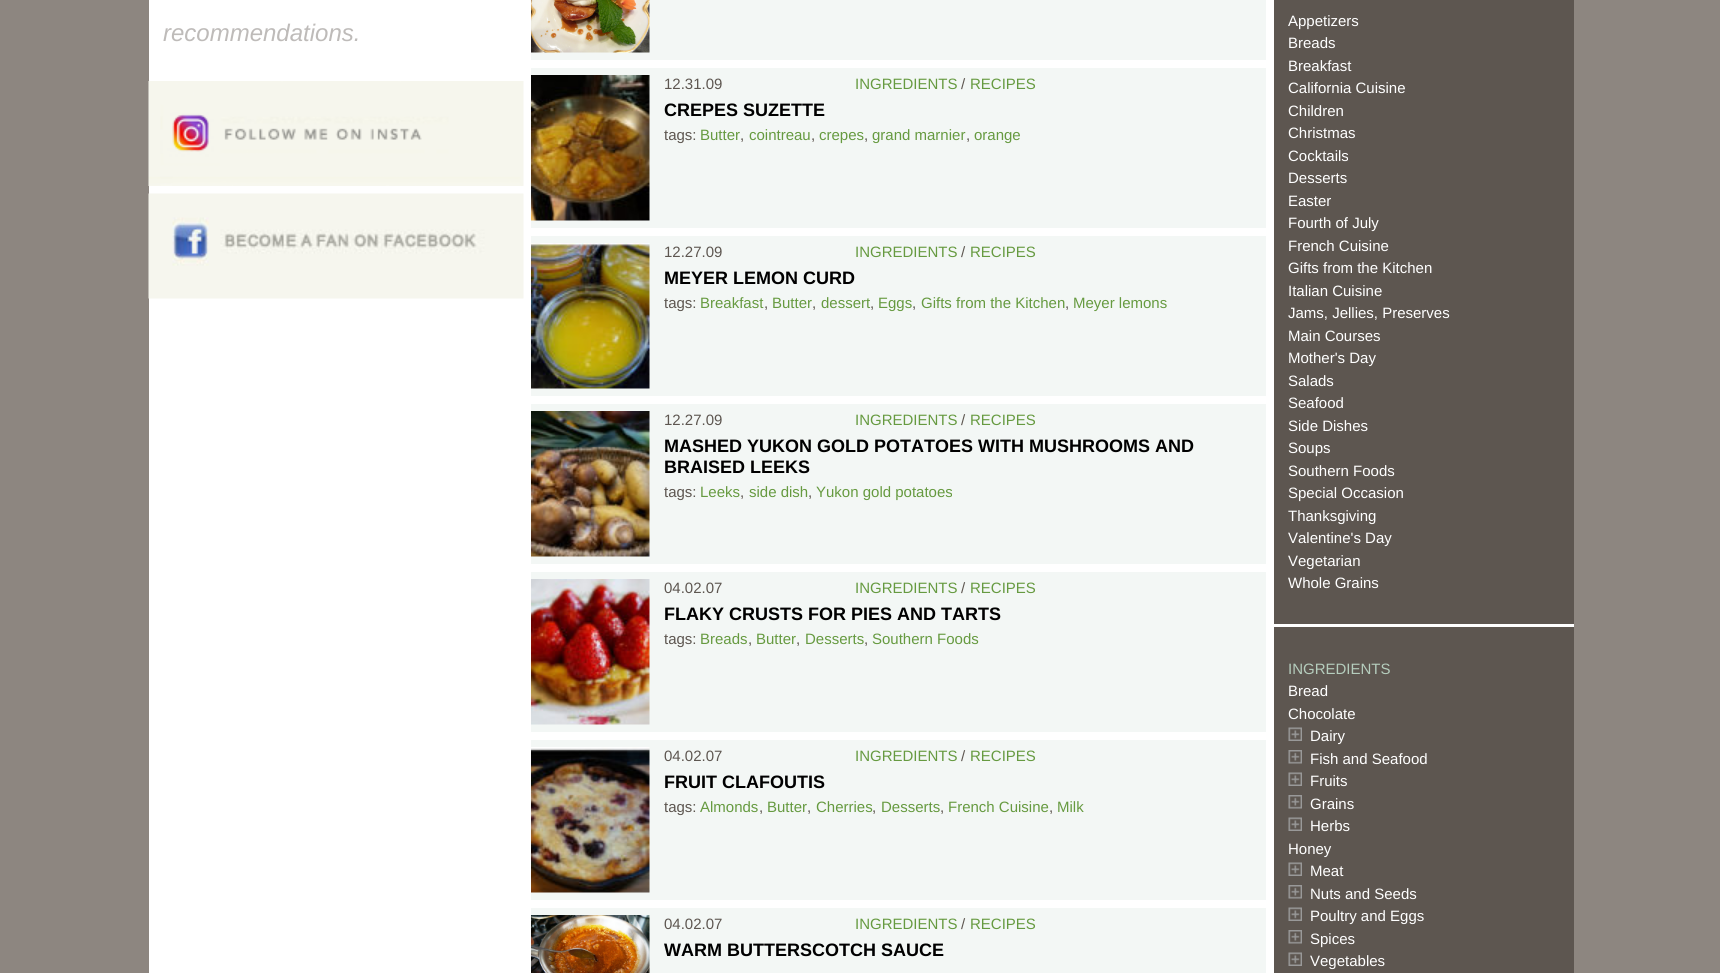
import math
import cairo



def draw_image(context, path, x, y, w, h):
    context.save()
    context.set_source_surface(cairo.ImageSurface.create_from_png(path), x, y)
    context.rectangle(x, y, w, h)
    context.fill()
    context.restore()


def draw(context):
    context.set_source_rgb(141 / 255, 134 / 255, 128 / 255)
    context.paint()
    context.set_source_rgb(1, 1, 1)
    context.rectangle(149, 0, 1425, 973)
    context.fill()
    draw_image(context, "images/1.png", 148, 81, 376, 105)
    draw_image(context, "images/2.png", 148, 193, 376, 106)
    context.set_source_rgb(243 / 255, 247 / 255, 245 / 255)
    context.rectangle(531, 0, 735, 60)
    context.fill()
    draw_image(context, "images/3.png", 531, 0, 119, 53)
    context.rectangle(531, 68, 735, 160)
    context.fill()
    draw_image(context, "images/4.png", 531, 75, 119, 146)
    context.rectangle(531, 236, 735, 160)
    context.fill()
    draw_image(context, "images/5.png", 531, 243, 119, 146)
    context.rectangle(531, 404, 735, 160)
    context.fill()
    draw_image(context, "images/6.png", 531, 411, 119, 146)
    context.rectangle(531, 572, 735, 160)
    context.fill()
    draw_image(context, "images/7.png", 531, 579, 119, 146)
    context.rectangle(531, 740, 735, 160)
    context.fill()
    draw_image(context, "images/8.png", 531, 747, 119, 146)
    context.rectangle(531, 908, 735, 65)
    context.fill()
    draw_image(context, "images/9.png", 531, 915, 119, 58)
    context.set_source_rgb(93 / 255, 86 / 255, 80 / 255)
    context.rectangle(1274, 0, 300, 624)
    context.fill()
    context.rectangle(1274, 627, 300, 346)
    context.fill()
    draw_image(context, "images/10.png", 1288, 727, 14, 14)
    draw_image(context, "images/11.png", 1288, 750, 14, 14)
    draw_image(context, "images/10.png", 1288, 772, 14, 14)
    draw_image(context, "images/11.png", 1288, 795, 14, 14)
    draw_image(context, "images/10.png", 1288, 817, 14, 14)
    draw_image(context, "images/10.png", 1288, 862, 14, 14)
    draw_image(context, "images/11.png", 1288, 885, 14, 14)
    draw_image(context, "images/10.png", 1288, 907, 14, 14)
    draw_image(context, "images/11.png", 1288, 930, 14, 14)
    draw_image(context, "images/10.png", 1288, 952, 14, 14)
    context.select_font_face("Liberation Sans", cairo.FontSlant.ITALIC)
    context.set_font_size(24)
    context.set_source_rgb(190 / 255, 187 / 255, 185 / 255)
    context.move_to(163, 41)
    context.show_text("recommendations.")
    context.select_font_face("Liberation Sans")
    context.set_font_size(15)
    context.set_source_rgb(93 / 255, 86 / 255, 80 / 255)
    context.move_to(664, 89)
    context.show_text("12.31.09")
    context.set_source_rgb(102 / 255, 154 / 255, 64 / 255)
    context.move_to(855, 89)
    context.show_text("INGREDIENTS")
    context.set_source_rgb(93 / 255, 86 / 255, 80 / 255)
    context.move_to(961, 89)
    context.show_text("/")
    context.set_source_rgb(102 / 255, 154 / 255, 64 / 255)
    context.move_to(970, 89)
    context.show_text("RECIPES")
    context.select_font_face("Liberation Sans", cairo.FontSlant.NORMAL, cairo.FontWeight.BOLD)
    context.set_font_size(18)
    context.set_source_rgb(0, 0, 0)
    context.move_to(664, 116)
    context.show_text("CREPES SUZETTE")
    context.select_font_face("Liberation Sans")
    context.set_font_size(15)
    context.set_source_rgb(93 / 255, 86 / 255, 80 / 255)
    context.move_to(664, 140)
    context.show_text("tags:")
    context.set_source_rgb(102 / 255, 154 / 255, 64 / 255)
    context.move_to(700, 140)
    context.show_text("Butter")
    context.set_source_rgb(93 / 255, 86 / 255, 80 / 255)
    context.move_to(740, 140)
    context.show_text(",")
    context.set_source_rgb(102 / 255, 154 / 255, 64 / 255)
    context.move_to(749, 140)
    context.show_text("cointreau")
    context.set_source_rgb(93 / 255, 86 / 255, 80 / 255)
    context.move_to(811, 140)
    context.show_text(",")
    context.set_source_rgb(102 / 255, 154 / 255, 64 / 255)
    context.move_to(819, 140)
    context.show_text("crepes")
    context.set_source_rgb(93 / 255, 86 / 255, 80 / 255)
    context.move_to(864, 140)
    context.show_text(",")
    context.set_source_rgb(102 / 255, 154 / 255, 64 / 255)
    context.move_to(872, 140)
    context.show_text("grand marnier")
    context.set_source_rgb(93 / 255, 86 / 255, 80 / 255)
    context.move_to(966, 140)
    context.show_text(",")
    context.set_source_rgb(102 / 255, 154 / 255, 64 / 255)
    context.move_to(974, 140)
    context.show_text("orange")
    context.set_source_rgb(93 / 255, 86 / 255, 80 / 255)
    context.move_to(664, 257)
    context.show_text("12.27.09")
    context.set_source_rgb(102 / 255, 154 / 255, 64 / 255)
    context.move_to(855, 257)
    context.show_text("INGREDIENTS")
    context.set_source_rgb(93 / 255, 86 / 255, 80 / 255)
    context.move_to(961, 257)
    context.show_text("/")
    context.set_source_rgb(102 / 255, 154 / 255, 64 / 255)
    context.move_to(970, 257)
    context.show_text("RECIPES")
    context.select_font_face("Liberation Sans", cairo.FontSlant.NORMAL, cairo.FontWeight.BOLD)
    context.set_font_size(18)
    context.set_source_rgb(0, 0, 0)
    context.move_to(664, 284)
    context.show_text("MEYER LEMON CURD")
    context.select_font_face("Liberation Sans")
    context.set_font_size(15)
    context.set_source_rgb(93 / 255, 86 / 255, 80 / 255)
    context.move_to(664, 308)
    context.show_text("tags:")
    context.set_source_rgb(102 / 255, 154 / 255, 64 / 255)
    context.move_to(700, 308)
    context.show_text("Breakfast")
    context.set_source_rgb(93 / 255, 86 / 255, 80 / 255)
    context.move_to(764, 308)
    context.show_text(",")
    context.set_source_rgb(102 / 255, 154 / 255, 64 / 255)
    context.move_to(772, 308)
    context.show_text("Butter")
    context.set_source_rgb(93 / 255, 86 / 255, 80 / 255)
    context.move_to(812, 308)
    context.show_text(",")
    context.set_source_rgb(102 / 255, 154 / 255, 64 / 255)
    context.move_to(821, 308)
    context.show_text("dessert")
    context.set_source_rgb(93 / 255, 86 / 255, 80 / 255)
    context.move_to(870, 308)
    context.show_text(",")
    context.set_source_rgb(102 / 255, 154 / 255, 64 / 255)
    context.move_to(878, 308)
    context.show_text("Eggs")
    context.set_source_rgb(93 / 255, 86 / 255, 80 / 255)
    context.move_to(912, 308)
    context.show_text(",")
    context.set_source_rgb(102 / 255, 154 / 255, 64 / 255)
    context.move_to(921, 308)
    context.show_text("Gifts from the Kitchen")
    context.set_source_rgb(93 / 255, 86 / 255, 80 / 255)
    context.move_to(1065, 308)
    context.show_text(",")
    context.set_source_rgb(102 / 255, 154 / 255, 64 / 255)
    context.move_to(1073, 308)
    context.show_text("Meyer lemons")
    context.set_source_rgb(93 / 255, 86 / 255, 80 / 255)
    context.move_to(664, 425)
    context.show_text("12.27.09")
    context.set_source_rgb(102 / 255, 154 / 255, 64 / 255)
    context.move_to(855, 425)
    context.show_text("INGREDIENTS")
    context.set_source_rgb(93 / 255, 86 / 255, 80 / 255)
    context.move_to(961, 425)
    context.show_text("/")
    context.set_source_rgb(102 / 255, 154 / 255, 64 / 255)
    context.move_to(970, 425)
    context.show_text("RECIPES")
    context.select_font_face("Liberation Sans", cairo.FontSlant.NORMAL, cairo.FontWeight.BOLD)
    context.set_font_size(18)
    context.set_source_rgb(0, 0, 0)
    context.move_to(664, 452)
    context.show_text("MASHED YUKON GOLD POTATOES WITH MUSHROOMS AND")
    context.move_to(664, 473)
    context.show_text("BRAISED LEEKS")
    context.select_font_face("Liberation Sans")
    context.set_font_size(15)
    context.set_source_rgb(93 / 255, 86 / 255, 80 / 255)
    context.move_to(664, 497)
    context.show_text("tags:")
    context.set_source_rgb(102 / 255, 154 / 255, 64 / 255)
    context.move_to(700, 497)
    context.show_text("Leeks")
    context.set_source_rgb(93 / 255, 86 / 255, 80 / 255)
    context.move_to(740, 497)
    context.show_text(",")
    context.set_source_rgb(102 / 255, 154 / 255, 64 / 255)
    context.move_to(749, 497)
    context.show_text("side dish")
    context.set_source_rgb(93 / 255, 86 / 255, 80 / 255)
    context.move_to(808, 497)
    context.show_text(",")
    context.set_source_rgb(102 / 255, 154 / 255, 64 / 255)
    context.move_to(816, 497)
    context.show_text("Yukon gold potatoes")
    context.set_source_rgb(93 / 255, 86 / 255, 80 / 255)
    context.move_to(664, 593)
    context.show_text("04.02.07")
    context.set_source_rgb(102 / 255, 154 / 255, 64 / 255)
    context.move_to(855, 593)
    context.show_text("INGREDIENTS")
    context.set_source_rgb(93 / 255, 86 / 255, 80 / 255)
    context.move_to(961, 593)
    context.show_text("/")
    context.set_source_rgb(102 / 255, 154 / 255, 64 / 255)
    context.move_to(970, 593)
    context.show_text("RECIPES")
    context.select_font_face("Liberation Sans", cairo.FontSlant.NORMAL, cairo.FontWeight.BOLD)
    context.set_font_size(18)
    context.set_source_rgb(0, 0, 0)
    context.move_to(664, 620)
    context.show_text("FLAKY CRUSTS FOR PIES AND TARTS")
    context.select_font_face("Liberation Sans")
    context.set_font_size(15)
    context.set_source_rgb(93 / 255, 86 / 255, 80 / 255)
    context.move_to(664, 644)
    context.show_text("tags:")
    context.set_source_rgb(102 / 255, 154 / 255, 64 / 255)
    context.move_to(700, 644)
    context.show_text("Breads")
    context.set_source_rgb(93 / 255, 86 / 255, 80 / 255)
    context.move_to(748, 644)
    context.show_text(",")
    context.set_source_rgb(102 / 255, 154 / 255, 64 / 255)
    context.move_to(756, 644)
    context.show_text("Butter")
    context.set_source_rgb(93 / 255, 86 / 255, 80 / 255)
    context.move_to(796, 644)
    context.show_text(",")
    context.set_source_rgb(102 / 255, 154 / 255, 64 / 255)
    context.move_to(805, 644)
    context.show_text("Desserts")
    context.set_source_rgb(93 / 255, 86 / 255, 80 / 255)
    context.move_to(864, 644)
    context.show_text(",")
    context.set_source_rgb(102 / 255, 154 / 255, 64 / 255)
    context.move_to(872, 644)
    context.show_text("Southern Foods")
    context.set_source_rgb(93 / 255, 86 / 255, 80 / 255)
    context.move_to(664, 761)
    context.show_text("04.02.07")
    context.set_source_rgb(102 / 255, 154 / 255, 64 / 255)
    context.move_to(855, 761)
    context.show_text("INGREDIENTS")
    context.set_source_rgb(93 / 255, 86 / 255, 80 / 255)
    context.move_to(961, 761)
    context.show_text("/")
    context.set_source_rgb(102 / 255, 154 / 255, 64 / 255)
    context.move_to(970, 761)
    context.show_text("RECIPES")
    context.select_font_face("Liberation Sans", cairo.FontSlant.NORMAL, cairo.FontWeight.BOLD)
    context.set_font_size(18)
    context.set_source_rgb(0, 0, 0)
    context.move_to(664, 788)
    context.show_text("FRUIT CLAFOUTIS")
    context.select_font_face("Liberation Sans")
    context.set_font_size(15)
    context.set_source_rgb(93 / 255, 86 / 255, 80 / 255)
    context.move_to(664, 812)
    context.show_text("tags:")
    context.set_source_rgb(102 / 255, 154 / 255, 64 / 255)
    context.move_to(700, 812)
    context.show_text("Almonds")
    context.set_source_rgb(93 / 255, 86 / 255, 80 / 255)
    context.move_to(759, 812)
    context.show_text(",")
    context.set_source_rgb(102 / 255, 154 / 255, 64 / 255)
    context.move_to(767, 812)
    context.show_text("Butter")
    context.set_source_rgb(93 / 255, 86 / 255, 80 / 255)
    context.move_to(807, 812)
    context.show_text(",")
    context.set_source_rgb(102 / 255, 154 / 255, 64 / 255)
    context.move_to(816, 812)
    context.show_text("Cherries")
    context.set_source_rgb(93 / 255, 86 / 255, 80 / 255)
    context.move_to(872, 812)
    context.show_text(",")
    context.set_source_rgb(102 / 255, 154 / 255, 64 / 255)
    context.move_to(881, 812)
    context.show_text("Desserts")
    context.set_source_rgb(93 / 255, 86 / 255, 80 / 255)
    context.move_to(940, 812)
    context.show_text(",")
    context.set_source_rgb(102 / 255, 154 / 255, 64 / 255)
    context.move_to(948, 812)
    context.show_text("French Cuisine")
    context.set_source_rgb(93 / 255, 86 / 255, 80 / 255)
    context.move_to(1049, 812)
    context.show_text(",")
    context.set_source_rgb(102 / 255, 154 / 255, 64 / 255)
    context.move_to(1057, 812)
    context.show_text("Milk")
    context.set_source_rgb(93 / 255, 86 / 255, 80 / 255)
    context.move_to(664, 929)
    context.show_text("04.02.07")
    context.set_source_rgb(102 / 255, 154 / 255, 64 / 255)
    context.move_to(855, 929)
    context.show_text("INGREDIENTS")
    context.set_source_rgb(93 / 255, 86 / 255, 80 / 255)
    context.move_to(961, 929)
    context.show_text("/")
    context.set_source_rgb(102 / 255, 154 / 255, 64 / 255)
    context.move_to(970, 929)
    context.show_text("RECIPES")
    context.select_font_face("Liberation Sans", cairo.FontSlant.NORMAL, cairo.FontWeight.BOLD)
    context.set_font_size(18)
    context.set_source_rgb(0, 0, 0)
    context.move_to(664, 956)
    context.show_text("WARM BUTTERSCOTCH SAUCE")
    context.select_font_face("Liberation Sans")
    context.set_font_size(15)
    context.set_source_rgb(1, 1, 1)
    context.move_to(1288, 26)
    context.show_text("Appetizers")
    context.move_to(1288, 48)
    context.show_text("Breads")
    context.move_to(1288, 71)
    context.show_text("Breakfast")
    context.move_to(1288, 93)
    context.show_text("California Cuisine")
    context.move_to(1288, 116)
    context.show_text("Children")
    context.move_to(1288, 138)
    context.show_text("Christmas")
    context.move_to(1288, 161)
    context.show_text("Cocktails")
    context.move_to(1288, 183)
    context.show_text("Desserts")
    context.move_to(1288, 206)
    context.show_text("Easter")
    context.move_to(1288, 228)
    context.show_text("Fourth of July")
    context.move_to(1288, 251)
    context.show_text("French Cuisine")
    context.move_to(1288, 273)
    context.show_text("Gifts from the Kitchen")
    context.move_to(1288, 296)
    context.show_text("Italian Cuisine")
    context.move_to(1288, 318)
    context.show_text("Jams, Jellies, Preserves")
    context.move_to(1288, 341)
    context.show_text("Main Courses")
    context.move_to(1288, 363)
    context.show_text("Mother's Day")
    context.move_to(1288, 386)
    context.show_text("Salads")
    context.move_to(1288, 408)
    context.show_text("Seafood")
    context.move_to(1288, 431)
    context.show_text("Side Dishes")
    context.move_to(1288, 453)
    context.show_text("Soups")
    context.move_to(1288, 476)
    context.show_text("Southern Foods")
    context.move_to(1288, 498)
    context.show_text("Special Occasion")
    context.move_to(1288, 521)
    context.show_text("Thanksgiving")
    context.move_to(1288, 543)
    context.show_text("Valentine's Day")
    context.move_to(1288, 566)
    context.show_text("Vegetarian")
    context.move_to(1288, 588)
    context.show_text("Whole Grains")
    context.set_source_rgb(181 / 255, 205 / 255, 189 / 255)
    context.move_to(1288, 674)
    context.show_text("INGREDIENTS")
    context.set_source_rgb(1, 1, 1)
    context.move_to(1288, 696)
    context.show_text("Bread")
    context.move_to(1288, 719)
    context.show_text("Chocolate")
    context.move_to(1310, 741)
    context.show_text("Dairy")
    context.move_to(1310, 764)
    context.show_text("Fish and Seafood")
    context.move_to(1310, 786)
    context.show_text("Fruits")
    context.move_to(1310, 809)
    context.show_text("Grains")
    context.move_to(1310, 831)
    context.show_text("Herbs")
    context.move_to(1288, 854)
    context.show_text("Honey")
    context.move_to(1310, 876)
    context.show_text("Meat")
    context.move_to(1310, 899)
    context.show_text("Nuts and Seeds")
    context.move_to(1310, 921)
    context.show_text("Poultry and Eggs")
    context.move_to(1310, 944)
    context.show_text("Spices")
    context.move_to(1310, 966)
    context.show_text("Vegetables")


surface = cairo.ImageSurface(cairo.Format.RGB24, 1720, 973)
context = cairo.Context(surface)
options = cairo.FontOptions()
options.set_hint_metrics(cairo.HintMetrics.OFF)
options.set_hint_style(cairo.HintStyle.NONE)
context.set_font_options(options)
context.set_miter_limit(4)
draw(context)
surface.write_to_png("out.png")
